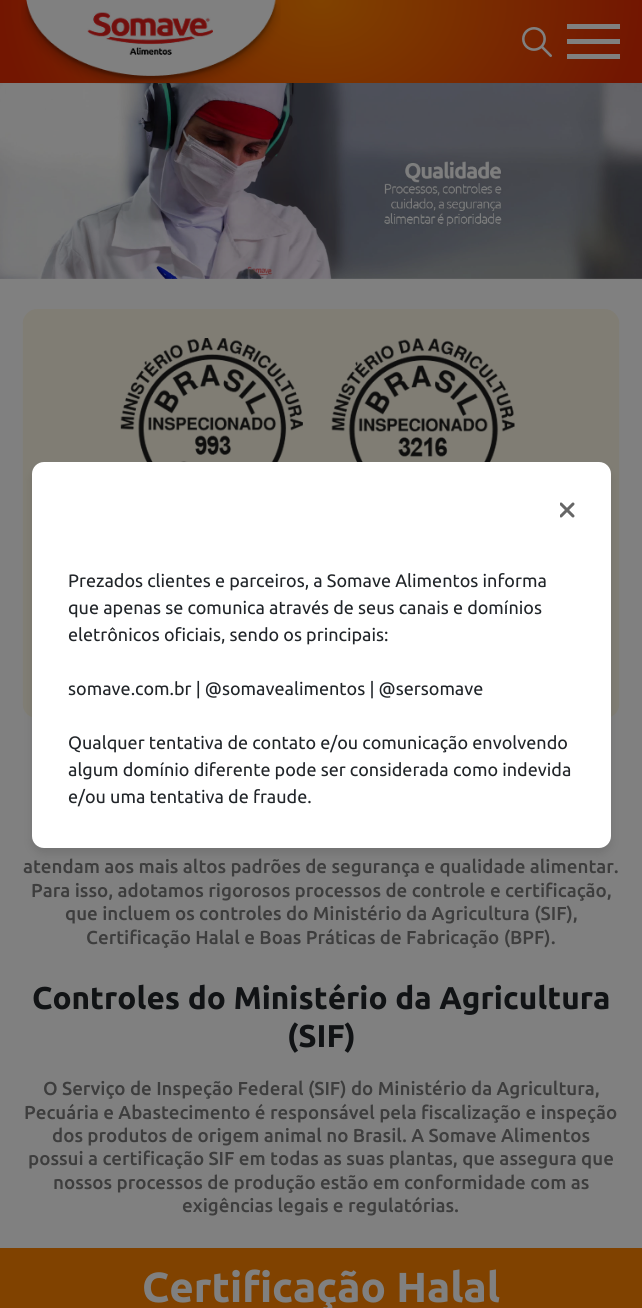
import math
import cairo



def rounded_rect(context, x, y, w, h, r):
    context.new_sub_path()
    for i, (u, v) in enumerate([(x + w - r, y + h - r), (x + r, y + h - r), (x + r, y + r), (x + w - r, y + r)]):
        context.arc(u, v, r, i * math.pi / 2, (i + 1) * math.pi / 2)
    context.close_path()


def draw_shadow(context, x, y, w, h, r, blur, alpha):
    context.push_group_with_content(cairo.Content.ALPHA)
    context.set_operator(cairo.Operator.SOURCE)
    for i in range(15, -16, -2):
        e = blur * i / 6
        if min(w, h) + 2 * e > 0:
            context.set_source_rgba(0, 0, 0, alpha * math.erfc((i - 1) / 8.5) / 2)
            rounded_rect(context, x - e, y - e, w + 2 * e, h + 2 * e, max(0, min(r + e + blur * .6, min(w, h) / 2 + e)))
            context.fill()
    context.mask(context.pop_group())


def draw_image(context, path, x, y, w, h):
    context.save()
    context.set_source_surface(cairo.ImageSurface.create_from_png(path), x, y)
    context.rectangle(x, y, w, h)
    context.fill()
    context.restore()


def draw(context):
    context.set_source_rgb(128 / 255, 128 / 255, 128 / 255)
    context.paint()
    draw_image(context, "images/5.png", 22, 309, 598, 409)
    context.set_source_rgb(0, 0, 0)
    draw_shadow(context, 32, 468, 579, 386, 12, 4.5, 0.1)
    context.set_source_rgb(1, 1, 1)
    rounded_rect(context, 32, 462, 579, 386, 12)
    context.fill()
    draw_image(context, "images/1.png", 560, 502, 15, 16)
    gradient = cairo.RadialGradient(0, 0, 0, 0, 0, 1)
    gradient.set_matrix(cairo.Matrix(1 / 321, 0, 0, 1 / 243, -1 * 321 / 321, -1 * 0 / 243))
    gradient.add_color_stop_rgba(0, 128 / 255, 66 / 255, 0, 1)
    gradient.add_color_stop_rgba(1, 115 / 255, 22 / 255, 1 / 255, 1)
    context.set_source(gradient)
    context.rectangle(0, 0, 642, 83)
    context.fill()
    draw_image(context, "images/4.png", 0, 83, 642, 196)
    draw_image(context, "images/2.png", 21, 0, 260, 84)
    draw_image(context, "images/3.png", 522, 27, 30, 30)
    context.set_source_rgb(128 / 255, 128 / 255, 128 / 255)
    context.rectangle(567, 24, 53, 5)
    context.fill()
    context.rectangle(567, 39, 53, 5)
    context.fill()
    context.rectangle(567, 54, 53, 5)
    context.fill()
    context.set_source_rgb(128 / 255, 66 / 255, 0)
    context.rectangle(0, 1248, 642, 60)
    context.fill()
    context.select_font_face("Ubuntu")
    context.set_font_size(18)
    context.set_source_rgb(33 / 255, 37 / 255, 41 / 255)
    context.move_to(68, 587)
    context.show_text("Prezados clientes e parceiros, a Somave Alimentos informa")
    context.move_to(68, 614)
    context.show_text("que apenas se comunica através de seus canais e domínios")
    context.move_to(68, 641)
    context.show_text("eletrônicos oficiais, sendo os principais:")
    context.move_to(68, 695)
    context.show_text("somave.com.br | @somavealimentos | @sersomave")
    context.move_to(68, 749)
    context.show_text("Qualquer tentativa de contato e/ou comunicação envolvendo")
    context.move_to(68, 776)
    context.show_text("algum domínio diferente pode ser considerada como indevida")
    context.move_to(68, 803)
    context.show_text("e/ou uma tentativa de fraude.")
    context.select_font_face("Ubuntu Medium")
    context.set_font_size(18.75)
    context.set_source_rgb(61 / 255, 61 / 255, 61 / 255)
    context.move_to(23, 873)
    context.show_text("atendam aos mais altos padrões de segurança e qualidade alimentar.")
    context.move_to(31, 897)
    context.show_text("Para isso, adotamos rigorosos processos de controle e certificação,")
    context.move_to(65, 920)
    context.show_text("que incluem os controles do Ministério da Agricultura (SIF),")
    context.move_to(86, 944)
    context.show_text("Certificação Halal e Boas Práticas de Fabricação (BPF).")
    context.select_font_face("Ubuntu", cairo.FontSlant.NORMAL, cairo.FontWeight.BOLD)
    context.set_font_size(31.5)
    context.set_source_rgb(17 / 255, 19 / 255, 21 / 255)
    context.move_to(32, 1009)
    context.show_text("Controles do Ministério da Agricultura")
    context.move_to(287, 1047)
    context.show_text("(SIF)")
    context.select_font_face("Ubuntu Medium")
    context.set_font_size(18.75)
    context.set_source_rgb(61 / 255, 61 / 255, 61 / 255)
    context.move_to(43, 1095)
    context.show_text("O Serviço de Inspeção Federal (SIF) do Ministério da Agricultura,")
    context.move_to(24, 1119)
    context.show_text("Pecuária e Abastecimento é responsável pela fiscalização e inspeção")
    context.move_to(52, 1142)
    context.show_text("dos produtos de origem animal no Brasil. A Somave Alimentos")
    context.move_to(28, 1165)
    context.show_text("possui a certificação SIF em todas as suas plantas, que assegura que")
    context.move_to(53, 1189)
    context.show_text("nossos processos de produção estão em conformidade com as")
    context.move_to(182, 1212)
    context.show_text("exigências legais e regulatórias.")
    context.select_font_face("Ubuntu", cairo.FontSlant.NORMAL, cairo.FontWeight.BOLD)
    context.set_font_size(42)
    context.set_source_rgb(128 / 255, 128 / 255, 128 / 255)
    context.move_to(142, 1302)
    context.show_text("Certificação Halal")


surface = cairo.ImageSurface(cairo.Format.RGB24, 642, 1308)
context = cairo.Context(surface)
options = cairo.FontOptions()
options.set_hint_metrics(cairo.HintMetrics.OFF)
options.set_hint_style(cairo.HintStyle.NONE)
context.set_font_options(options)
context.set_miter_limit(4)
draw(context)
surface.write_to_png("out.png")
